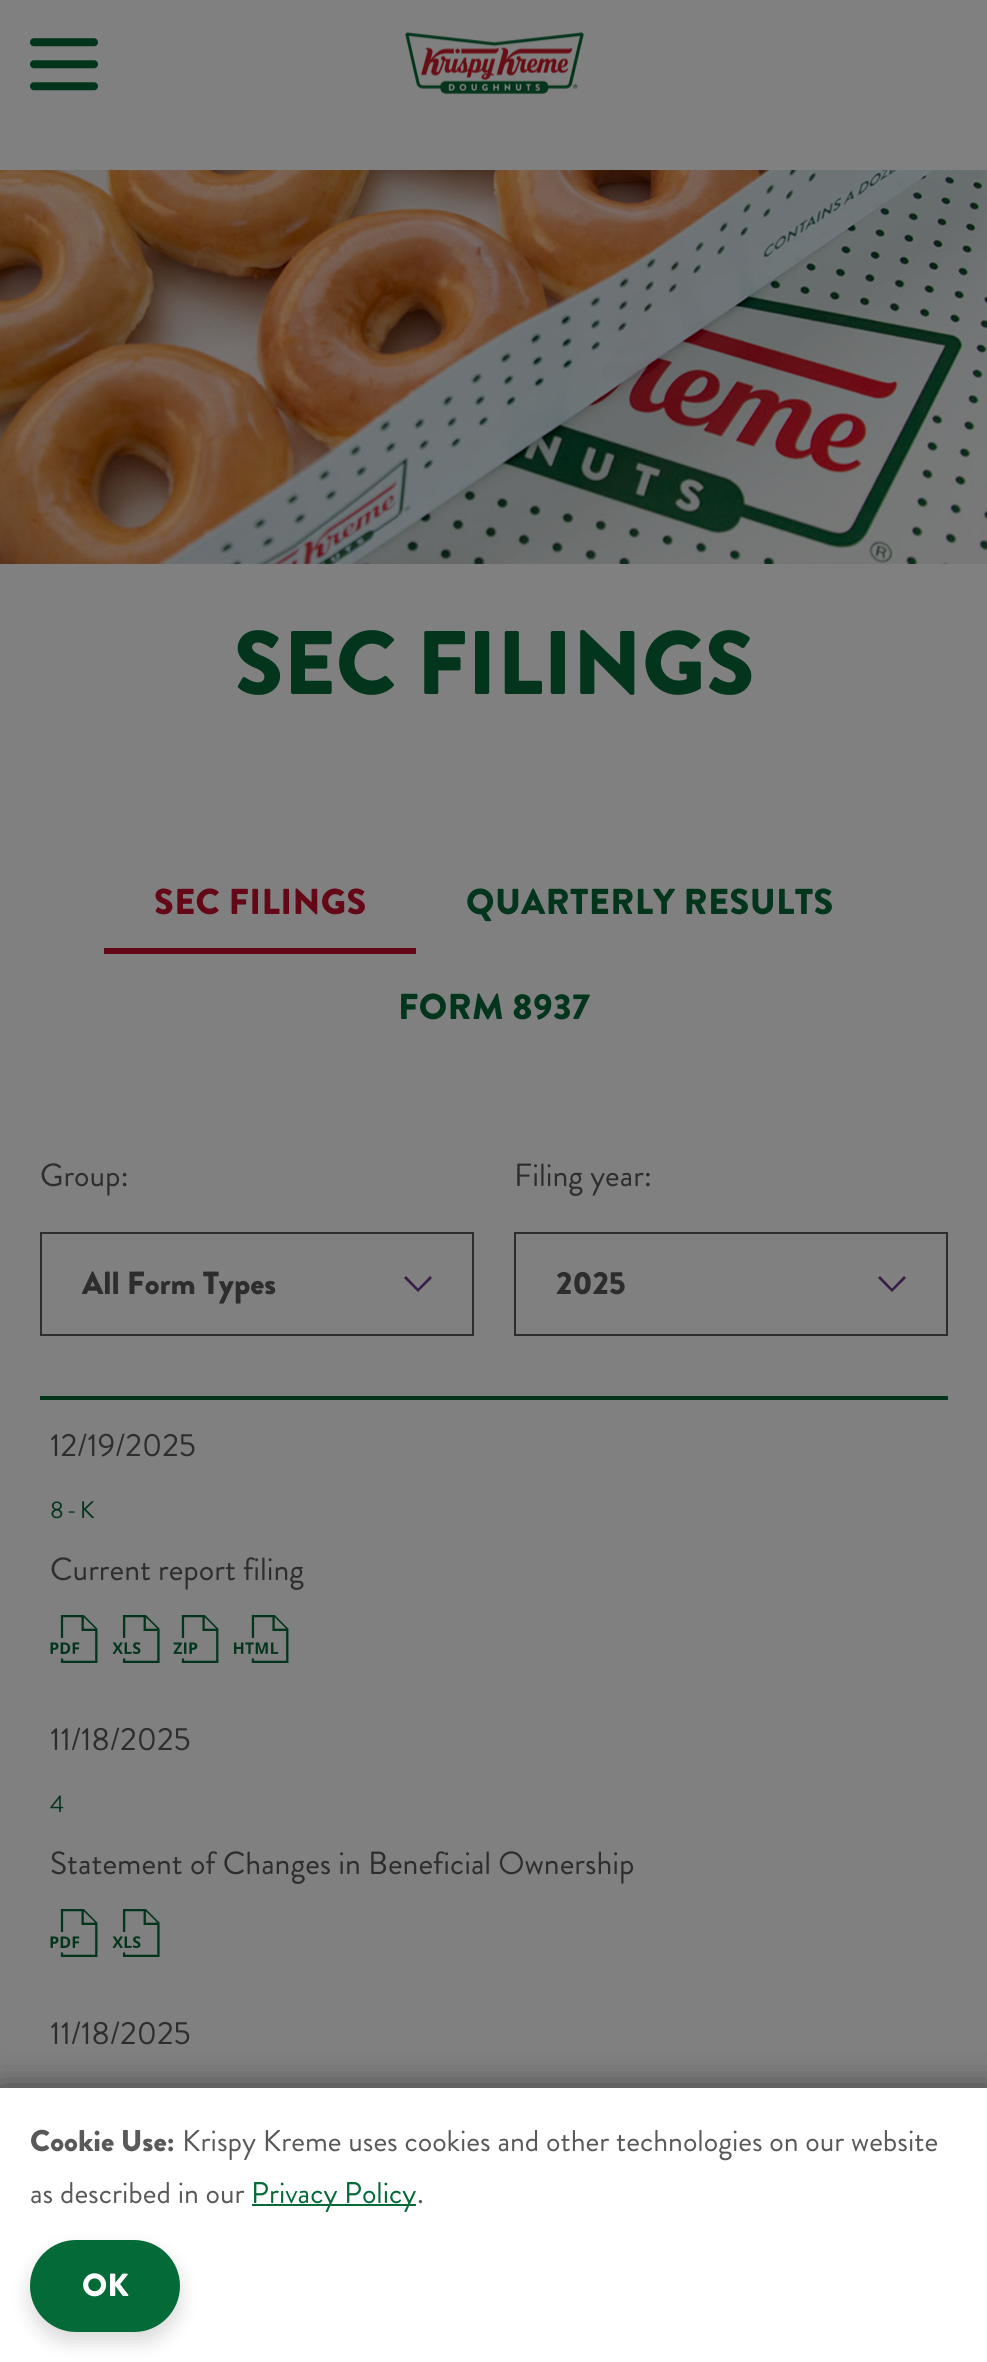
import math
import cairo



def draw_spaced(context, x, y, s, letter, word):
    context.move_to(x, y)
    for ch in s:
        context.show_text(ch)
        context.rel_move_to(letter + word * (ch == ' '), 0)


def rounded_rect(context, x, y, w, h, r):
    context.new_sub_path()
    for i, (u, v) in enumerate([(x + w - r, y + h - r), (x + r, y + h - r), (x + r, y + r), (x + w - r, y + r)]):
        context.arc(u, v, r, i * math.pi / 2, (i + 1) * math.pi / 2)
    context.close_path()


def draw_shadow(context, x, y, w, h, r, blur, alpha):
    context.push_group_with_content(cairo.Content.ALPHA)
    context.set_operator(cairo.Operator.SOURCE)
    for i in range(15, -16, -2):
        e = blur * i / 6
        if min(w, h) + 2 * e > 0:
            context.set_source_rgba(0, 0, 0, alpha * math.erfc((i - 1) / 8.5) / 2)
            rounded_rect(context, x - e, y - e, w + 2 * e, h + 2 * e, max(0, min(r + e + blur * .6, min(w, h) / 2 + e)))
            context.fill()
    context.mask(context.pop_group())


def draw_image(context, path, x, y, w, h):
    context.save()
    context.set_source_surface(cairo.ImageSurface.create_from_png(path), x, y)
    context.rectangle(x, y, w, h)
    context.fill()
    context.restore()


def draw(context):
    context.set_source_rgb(128 / 255, 128 / 255, 128 / 255)
    context.paint()
    draw_image(context, "images/1.png", 30, 38, 68, 53)
    draw_image(context, "images/2.png", 405, 32, 179, 62)
    draw_image(context, "images/3.png", 0, 170, 987, 394)
    context.set_source_rgb(100 / 255, 8 / 255, 23 / 255)
    context.rectangle(104, 948, 312, 6)
    context.fill()
    context.set_source_rgb(56 / 255, 29 / 255, 72 / 255)
    context.new_path()
    context.move_to(432, 1278)
    context.line_to(430, 1276)
    context.line_to(418, 1288.5)
    context.line_to(406, 1276)
    context.line_to(404, 1278)
    context.line_to(418, 1292)
    context.close_path()
    context.fill()
    context.rectangle(41, 1233, 432, 102)
    context.set_source_rgb(45 / 255, 45 / 255, 45 / 255)
    context.stroke()
    context.set_source_rgb(56 / 255, 29 / 255, 72 / 255)
    context.new_path()
    context.move_to(906, 1278)
    context.line_to(904, 1276)
    context.line_to(892, 1288.5)
    context.line_to(880, 1276)
    context.line_to(878, 1278)
    context.line_to(892, 1292)
    context.close_path()
    context.fill()
    context.rectangle(515, 1233, 432, 102)
    context.set_source_rgb(45 / 255, 45 / 255, 45 / 255)
    context.stroke()
    context.set_source_rgb(2 / 255, 53 / 255, 28 / 255)
    context.rectangle(40, 1396, 908, 4)
    context.fill()
    draw_image(context, "images/4.png", 50, 1615, 48, 48)
    draw_image(context, "images/5.png", 112, 1615, 48, 48)
    draw_image(context, "images/6.png", 173, 1615, 46, 48)
    draw_image(context, "images/7.png", 234, 1615, 55, 48)
    draw_image(context, "images/4.png", 50, 1909, 48, 48)
    draw_image(context, "images/5.png", 112, 1909, 48, 48)
    context.set_source_rgb(51 / 255, 51 / 255, 51 / 255)
    draw_shadow(context, 0, 2092, 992, 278, 0, 18, 1)
    context.set_source_rgb(1, 1, 1)
    context.rectangle(0, 2088, 987, 274)
    context.fill()
    context.set_source_rgb(4 / 255, 106 / 255, 56 / 255)
    context.rectangle(252, 2204, 164, 2)
    context.fill()
    context.set_source_rgb(0, 0, 0)
    draw_shadow(context, 30, 2250, 150, 92, 46, 10, 0.15)
    context.set_source_rgb(4 / 255, 106 / 255, 56 / 255)
    rounded_rect(context, 31, 2241, 148, 90, 45)
    context.fill_preserve()
    context.stroke()
    context.select_font_face("Brandon Grotesque Black")
    context.set_font_size(90)
    context.set_source_rgb(2 / 255, 53 / 255, 28 / 255)
    context.move_to(234, 694)
    context.show_text("SEC FILINGS")
    context.set_font_size(36)
    context.set_source_rgb(100 / 255, 8 / 255, 23 / 255)
    draw_spaced(context, 154, 914, "SEC FILINGS", 0.4, 0)
    context.set_source_rgb(2 / 255, 53 / 255, 28 / 255)
    draw_spaced(context, 466, 914, "QUARTERLY RESULTS", 0.4, 0)
    draw_spaced(context, 398, 1019, "FORM 8937", 0.4, 0)
    context.select_font_face("Brandon Grotesque")
    context.set_font_size(32)
    context.set_source_rgb(45 / 255, 45 / 255, 45 / 255)
    context.move_to(40, 1186)
    context.show_text("Group:")
    context.select_font_face("Brandon Grotesque Black")
    context.move_to(82, 1294)
    context.show_text("All Form Types")
    context.select_font_face("Brandon Grotesque")
    context.move_to(514, 1186)
    context.show_text("Filing year:")
    context.select_font_face("Brandon Grotesque Black")
    context.move_to(556, 1294)
    context.show_text("2025")
    context.select_font_face("Brandon Grotesque")
    context.move_to(50, 1456)
    context.show_text("12/19/2025")
    context.set_font_size(24)
    context.set_source_rgb(2 / 255, 53 / 255, 28 / 255)
    draw_spaced(context, 50, 1518, "8-K", 3, 0)
    context.set_font_size(32)
    context.set_source_rgb(45 / 255, 45 / 255, 45 / 255)
    context.move_to(50, 1580)
    context.show_text("Current report filing")
    context.move_to(50, 1750)
    context.show_text("11/18/2025")
    context.set_font_size(24)
    context.set_source_rgb(2 / 255, 53 / 255, 28 / 255)
    draw_spaced(context, 50, 1812, "4", 3, 0)
    context.set_font_size(32)
    context.set_source_rgb(45 / 255, 45 / 255, 45 / 255)
    context.move_to(50, 1874)
    context.show_text("Statement of Changes in Beneficial Ownership")
    context.move_to(50, 2044)
    context.show_text("11/18/2025")
    context.select_font_face("Brandon Grotesque Black")
    context.set_font_size(30)
    context.set_source_rgb(89 / 255, 89 / 255, 89 / 255)
    context.move_to(30, 2151)
    context.show_text("Cookie Use:")
    context.select_font_face("Brandon Grotesque")
    context.move_to(182, 2151)
    context.show_text("Krispy Kreme uses cookies and other technologies on our website")
    context.move_to(30, 2203)
    context.show_text("as described in our")
    context.set_source_rgb(4 / 255, 106 / 255, 56 / 255)
    context.move_to(251, 2203)
    context.show_text("Privacy Policy")
    context.set_source_rgb(89 / 255, 89 / 255, 89 / 255)
    context.move_to(417, 2203)
    context.show_text(".")
    context.select_font_face("Brandon Grotesque Black")
    context.set_font_size(32)
    context.set_source_rgb(1, 1, 1)
    context.move_to(82, 2296)
    context.show_text("OK")


surface = cairo.ImageSurface(cairo.Format.RGB24, 987, 2362)
context = cairo.Context(surface)
options = cairo.FontOptions()
options.set_hint_metrics(cairo.HintMetrics.OFF)
options.set_hint_style(cairo.HintStyle.NONE)
context.set_font_options(options)
context.set_miter_limit(4)
draw(context)
surface.write_to_png("out.png")
